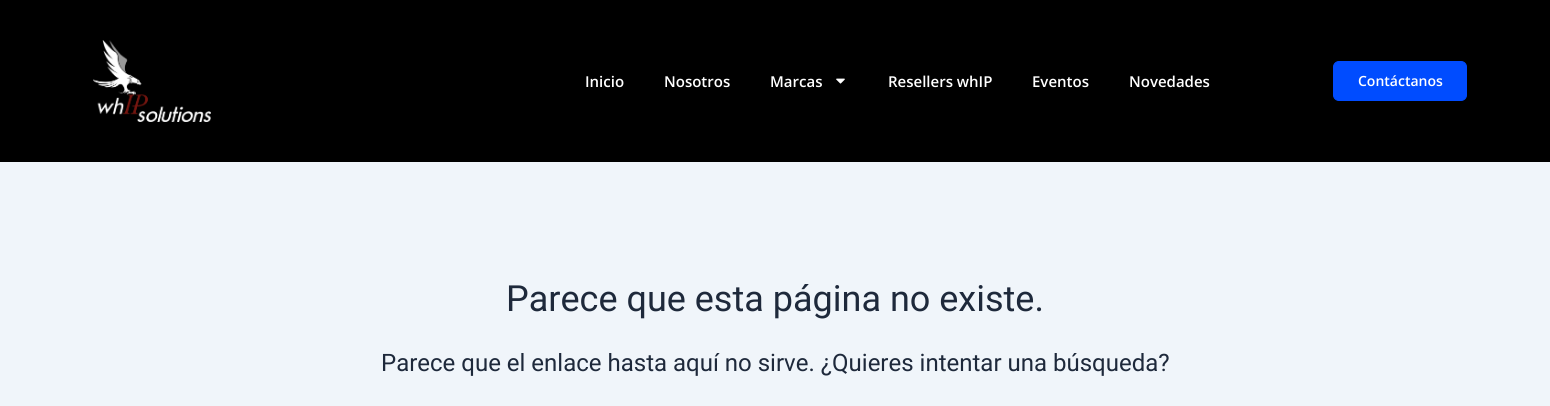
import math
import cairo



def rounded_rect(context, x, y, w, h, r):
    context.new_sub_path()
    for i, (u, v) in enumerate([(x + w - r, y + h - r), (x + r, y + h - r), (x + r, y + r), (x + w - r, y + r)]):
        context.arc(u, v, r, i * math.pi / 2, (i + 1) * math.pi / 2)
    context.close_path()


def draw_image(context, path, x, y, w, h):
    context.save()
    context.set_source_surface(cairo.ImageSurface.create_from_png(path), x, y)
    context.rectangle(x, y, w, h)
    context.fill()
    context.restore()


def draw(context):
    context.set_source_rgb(240 / 255, 245 / 255, 250 / 255)
    context.paint()
    context.set_source_rgb(0, 0, 0)
    context.rectangle(0, 0, 1550, 162)
    context.fill()
    draw_image(context, "images/1.png", 93, 40, 118, 82)
    draw_image(context, "images/2.png", 836, 78, 9, 6)
    context.set_source_rgb(0, 76 / 255, 1)
    rounded_rect(context, 1333.5, 61.5, 133, 39, 5.5)
    context.fill_preserve()
    context.set_line_width(1)
    context.stroke()
    context.select_font_face("Open Sans SemiBold")
    context.set_font_size(15)
    context.set_source_rgb(1, 1, 1)
    context.move_to(585, 87)
    context.show_text("Inicio")
    context.move_to(664, 87)
    context.show_text("Nosotros")
    context.move_to(770, 87)
    context.show_text("Marcas")
    context.move_to(888, 87)
    context.show_text("Resellers whIP")
    context.move_to(1032, 87)
    context.show_text("Eventos")
    context.move_to(1129, 87)
    context.show_text("Novedades")
    context.set_font_size(14)
    context.move_to(1358, 86)
    context.show_text("Contáctanos")
    context.select_font_face("Roboto")
    context.set_font_size(36)
    context.set_source_rgb(30 / 255, 41 / 255, 59 / 255)
    context.move_to(506, 311)
    context.show_text("Parece que esta página no existe.")
    context.set_font_size(24)
    context.move_to(381, 371)
    context.show_text("Parece que el enlace hasta aquí no sirve. ¿Quieres intentar una búsqueda?")


surface = cairo.ImageSurface(cairo.Format.RGB24, 1550, 406)
context = cairo.Context(surface)
options = cairo.FontOptions()
options.set_hint_metrics(cairo.HintMetrics.OFF)
options.set_hint_style(cairo.HintStyle.NONE)
context.set_font_options(options)
context.set_miter_limit(4)
draw(context)
surface.write_to_png("out.png")
